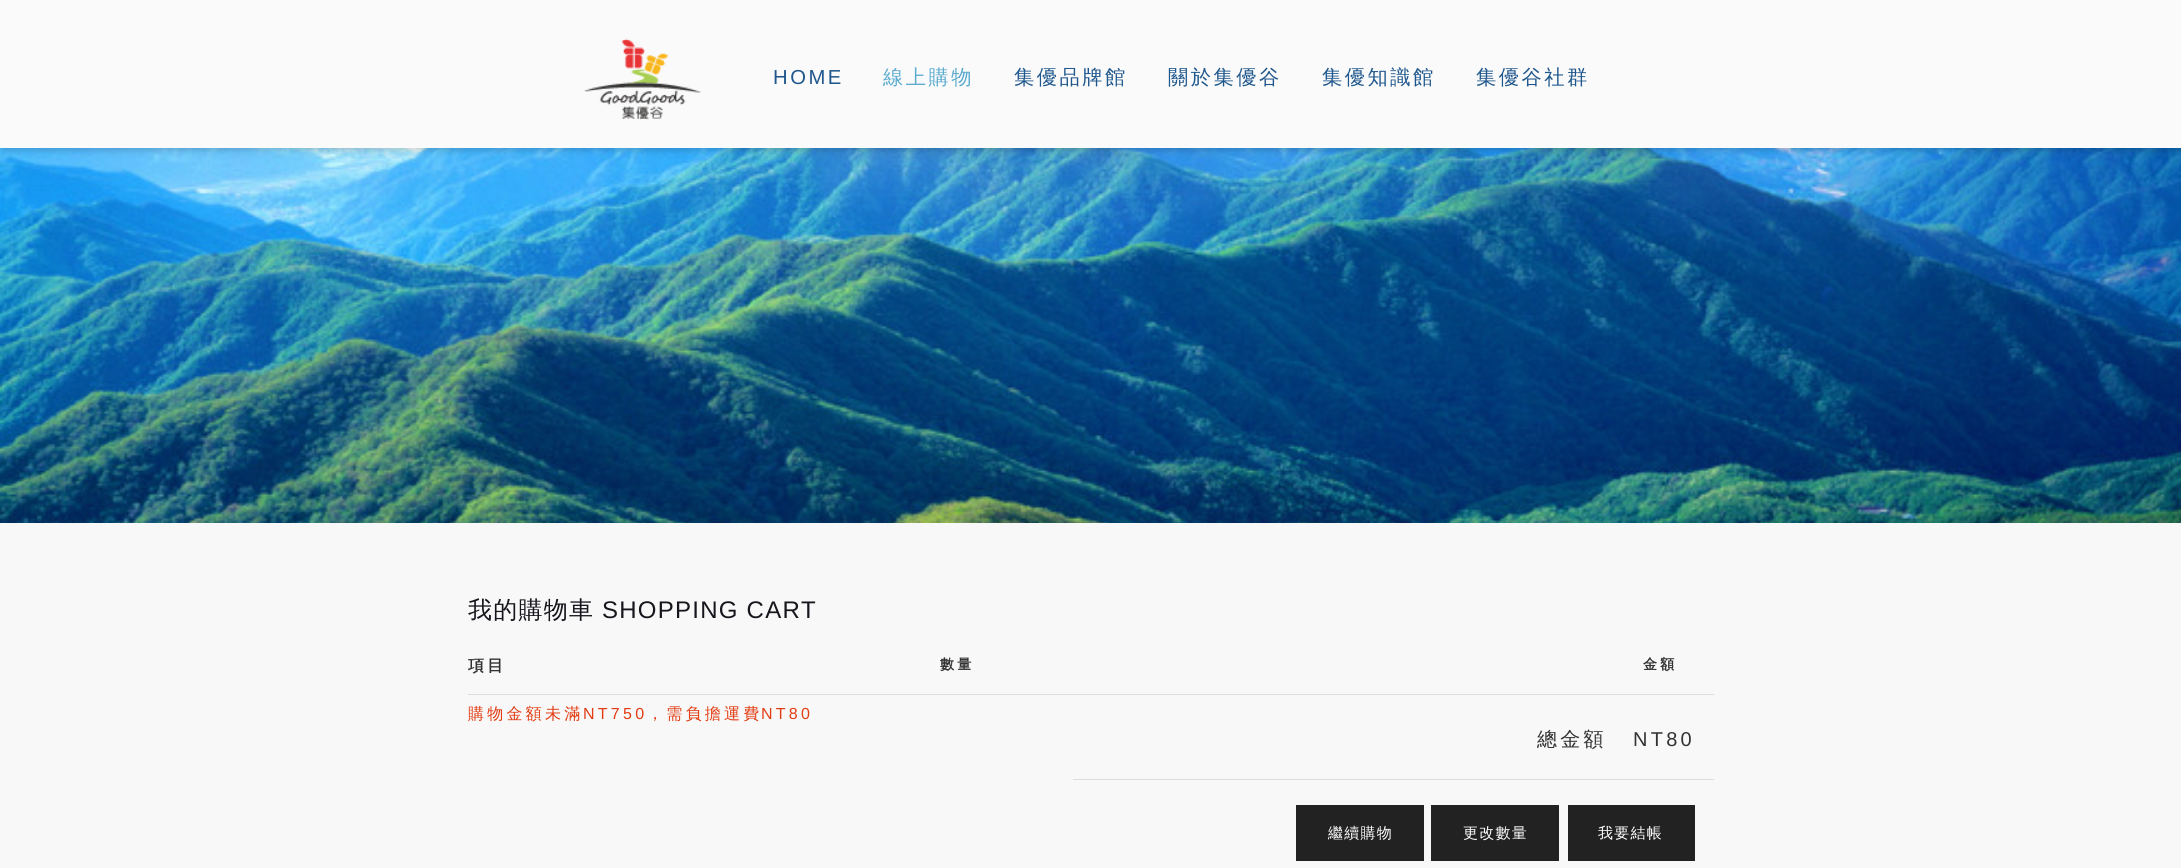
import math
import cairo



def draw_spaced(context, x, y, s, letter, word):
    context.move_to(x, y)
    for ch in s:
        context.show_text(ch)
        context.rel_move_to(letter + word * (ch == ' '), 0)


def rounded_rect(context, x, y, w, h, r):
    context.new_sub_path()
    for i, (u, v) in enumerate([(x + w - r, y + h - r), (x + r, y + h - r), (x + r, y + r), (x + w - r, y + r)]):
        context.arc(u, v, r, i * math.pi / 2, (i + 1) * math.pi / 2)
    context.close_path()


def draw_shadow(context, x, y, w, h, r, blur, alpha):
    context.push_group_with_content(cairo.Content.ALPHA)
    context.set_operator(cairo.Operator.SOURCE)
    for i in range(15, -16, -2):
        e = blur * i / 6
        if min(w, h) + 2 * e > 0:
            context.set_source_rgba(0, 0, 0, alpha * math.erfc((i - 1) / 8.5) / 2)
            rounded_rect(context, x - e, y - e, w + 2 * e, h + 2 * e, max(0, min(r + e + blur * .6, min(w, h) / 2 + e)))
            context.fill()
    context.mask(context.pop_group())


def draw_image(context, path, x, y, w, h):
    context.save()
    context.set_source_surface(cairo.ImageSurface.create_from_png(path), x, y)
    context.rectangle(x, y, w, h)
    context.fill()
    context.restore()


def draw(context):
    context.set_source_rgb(1, 1, 1)
    context.paint()
    draw_image(context, "images/2.png", 0, 148, 2181, 375)
    context.set_source_rgb(0, 0, 0)
    draw_shadow(context, 3, 3, 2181, 147, 0, 4, 0.2)
    context.set_source_rgb(250 / 255, 250 / 255, 250 / 255)
    context.rectangle(0, 0, 2181, 148)
    context.fill()
    draw_image(context, "images/1.png", 584, 38, 118, 82)
    context.set_source_rgb(248 / 255, 248 / 255, 248 / 255)
    context.rectangle(0, 523, 2181, 345)
    context.fill()
    context.set_source_rgb(221 / 255, 221 / 255, 221 / 255)
    context.rectangle(468, 694, 1246, 1)
    context.fill()
    context.rectangle(1073, 779, 641, 1)
    context.fill()
    context.set_source_rgb(34 / 255, 34 / 255, 34 / 255)
    context.rectangle(1296, 805, 128, 56)
    context.fill()
    context.rectangle(1431, 805, 128, 56)
    context.fill()
    context.rectangle(1568, 805, 127, 56)
    context.fill()
    context.select_font_face("Liberation Sans")
    context.set_font_size(20.25)
    context.set_source_rgb(31 / 255, 87 / 255, 141 / 255)
    draw_spaced(context, 773, 84, "HOME", 2.5, 0)
    context.select_font_face("WenQuanYi Zen Hei Medium")
    context.set_source_rgb(91 / 255, 171 / 255, 207 / 255)
    draw_spaced(context, 883, 84, "線上購物", 2.5, 0)
    context.set_source_rgb(31 / 255, 87 / 255, 141 / 255)
    draw_spaced(context, 1014, 84, "集優品牌館", 2.5, 0)
    draw_spaced(context, 1168, 84, "關於集優谷", 2.5, 0)
    draw_spaced(context, 1322, 84, "集優知識館", 2.5, 0)
    draw_spaced(context, 1476, 84, "集優谷社群", 2.5, 0)
    context.set_font_size(24)
    context.set_source_rgb(22 / 255, 22 / 255, 29 / 255)
    draw_spaced(context, 468, 618, "我的購物車", 1.25, 0)
    context.select_font_face("Liberation Sans")
    draw_spaced(context, 602, 618, "SHOPPING CART", 1.25, 0)
    context.select_font_face("WenQuanYi Zen Hei", cairo.FontSlant.NORMAL, cairo.FontWeight.BOLD)
    context.set_font_size(16)
    context.set_source_rgb(51 / 255, 51 / 255, 51 / 255)
    draw_spaced(context, 468, 671, "項目", 3.25, 0)
    context.set_font_size(14)
    draw_spaced(context, 940, 669, "數量", 3.25, 0)
    draw_spaced(context, 1643, 669, "金額", 3.25, 0)
    context.select_font_face("WenQuanYi Zen Hei Medium")
    context.set_font_size(16)
    context.set_source_rgb(226 / 255, 60 / 255, 18 / 255)
    draw_spaced(context, 468, 719, "購物金額未滿", 3.25, 0)
    context.select_font_face("Liberation Sans")
    draw_spaced(context, 583, 719, "NT750", 3.25, 0)
    context.select_font_face("WenQuanYi Zen Hei Medium")
    draw_spaced(context, 647, 719, "，需負擔運費", 3.25, 0)
    context.select_font_face("Liberation Sans")
    draw_spaced(context, 761, 719, "NT80", 3.25, 0)
    context.select_font_face("WenQuanYi Zen Hei Medium")
    context.set_font_size(20)
    context.set_source_rgb(51 / 255, 51 / 255, 51 / 255)
    draw_spaced(context, 1537, 746, "總金額", 3.25, 0)
    context.select_font_face("Liberation Sans")
    draw_spaced(context, 1633, 746, "NT80", 3.25, 0)
    context.select_font_face("WenQuanYi Zen Hei Medium")
    context.set_font_size(15)
    context.set_source_rgb(1, 1, 1)
    draw_spaced(context, 1328, 838, "繼續購物", 1.25, 0)
    draw_spaced(context, 1463, 838, "更改數量", 1.25, 0)
    draw_spaced(context, 1598, 838, "我要結帳", 1.25, 0)


surface = cairo.ImageSurface(cairo.Format.RGB24, 2181, 868)
context = cairo.Context(surface)
options = cairo.FontOptions()
options.set_hint_metrics(cairo.HintMetrics.OFF)
options.set_hint_style(cairo.HintStyle.NONE)
context.set_font_options(options)
context.set_miter_limit(4)
draw(context)
surface.write_to_png("out.png")
